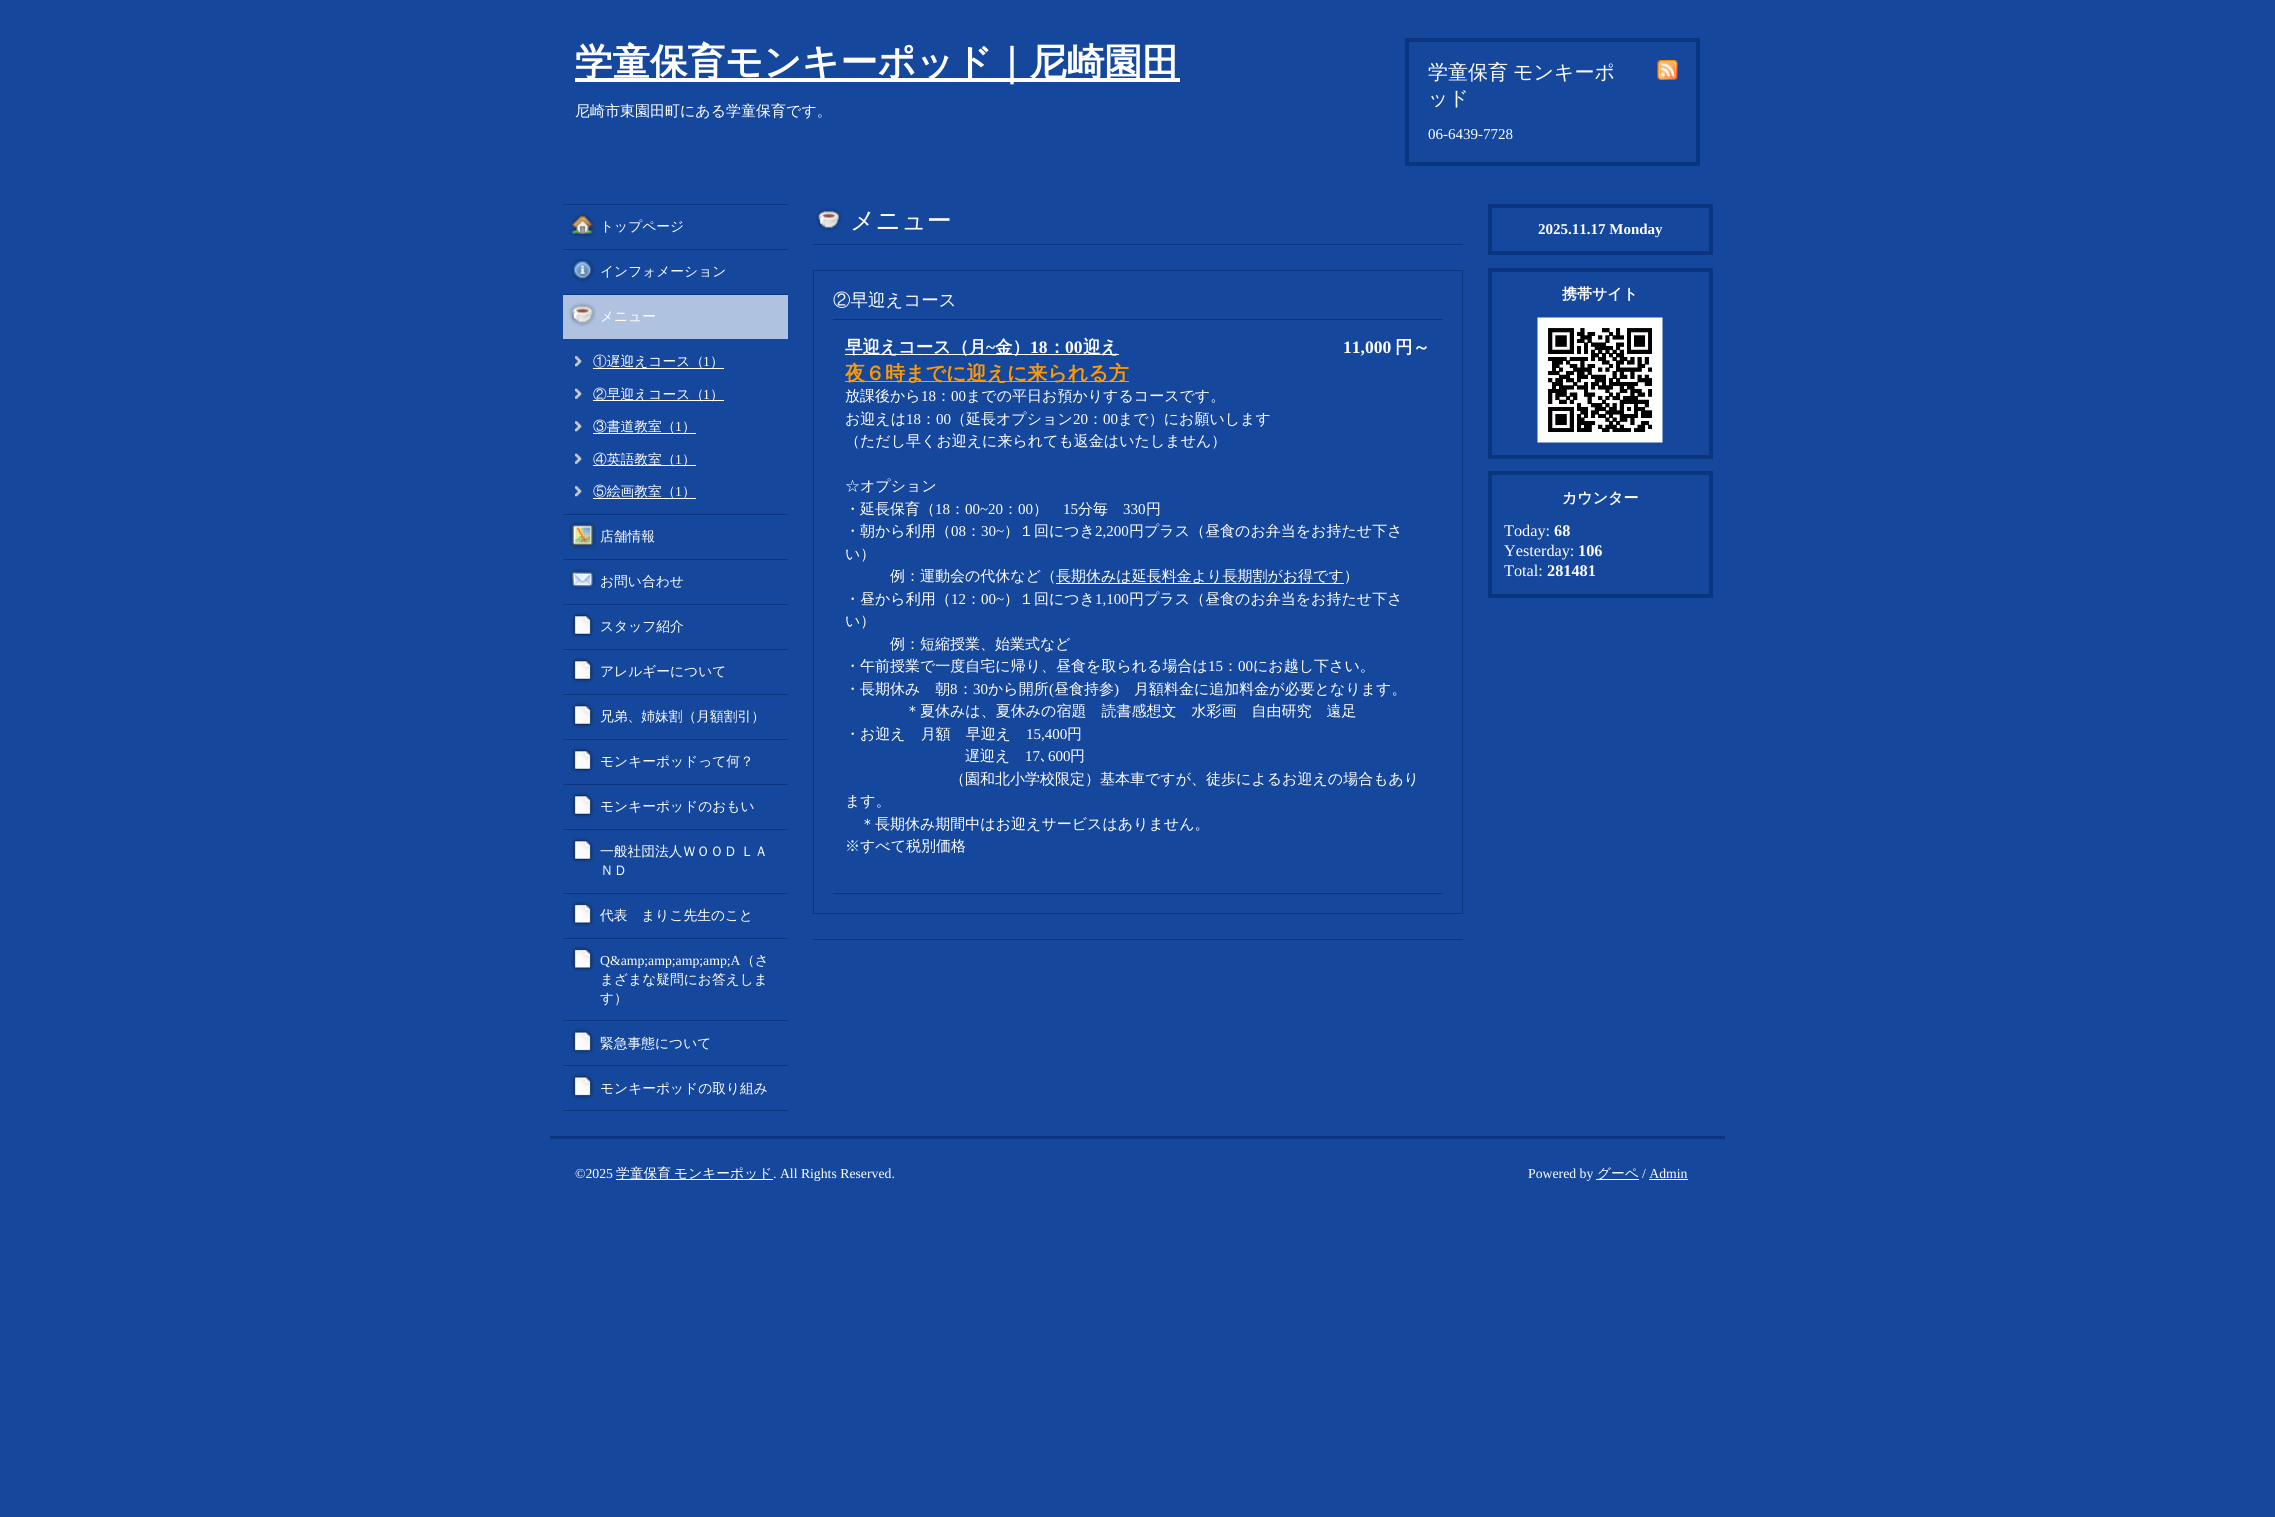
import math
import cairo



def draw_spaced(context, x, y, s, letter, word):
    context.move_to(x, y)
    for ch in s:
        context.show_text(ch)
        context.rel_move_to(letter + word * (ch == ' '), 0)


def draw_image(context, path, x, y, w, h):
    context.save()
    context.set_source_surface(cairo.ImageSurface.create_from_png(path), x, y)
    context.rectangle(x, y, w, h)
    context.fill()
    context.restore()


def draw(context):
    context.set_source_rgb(21 / 255, 72 / 255, 157 / 255)
    context.paint()
    context.set_source_rgb(1, 1, 1)
    context.rectangle(575, 78, 605, 4)
    context.fill()
    context.rectangle(1407, 40, 291, 124)
    context.set_source_rgb(9 / 255, 54 / 255, 127 / 255)
    context.set_line_width(4)
    context.stroke()
    draw_image(context, "images/1.png", 1657, 60, 21, 20)
    context.rectangle(563, 204, 225, 1)
    context.fill()
    context.rectangle(563, 249, 225, 1)
    context.fill()
    draw_image(context, "images/2.png", 570, 212, 25, 26)
    context.rectangle(563, 294, 225, 1)
    context.fill()
    draw_image(context, "images/3.png", 570, 257, 25, 26)
    context.rectangle(563, 514, 225, 1)
    context.fill()
    context.set_source_rgb(175 / 255, 195 / 255, 224 / 255)
    context.rectangle(563, 295, 225, 44)
    context.fill()
    draw_image(context, "images/4.png", 569, 302, 27, 25)
    draw_image(context, "images/5.png", 575, 356, 7, 11)
    context.set_source_rgb(1, 1, 1)
    context.rectangle(593, 368, 131, 1)
    context.fill()
    draw_image(context, "images/6.png", 575, 388, 7, 11)
    context.rectangle(593, 400, 131, 1)
    context.fill()
    draw_image(context, "images/5.png", 575, 421, 7, 11)
    context.rectangle(593, 433, 103, 1)
    context.fill()
    draw_image(context, "images/6.png", 575, 453, 7, 11)
    context.rectangle(593, 465, 103, 1)
    context.fill()
    draw_image(context, "images/5.png", 575, 486, 7, 11)
    context.rectangle(593, 498, 103, 1)
    context.fill()
    context.set_source_rgb(9 / 255, 54 / 255, 127 / 255)
    context.rectangle(563, 559, 225, 1)
    context.fill()
    draw_image(context, "images/7.png", 568, 521, 29, 28)
    context.rectangle(563, 604, 225, 1)
    context.fill()
    draw_image(context, "images/8.png", 568, 568, 29, 22)
    context.rectangle(563, 649, 225, 1)
    context.fill()
    draw_image(context, "images/9.png", 570, 612, 25, 26)
    context.rectangle(563, 694, 225, 1)
    context.fill()
    draw_image(context, "images/9.png", 570, 657, 25, 26)
    context.rectangle(563, 739, 225, 1)
    context.fill()
    draw_image(context, "images/9.png", 570, 702, 25, 26)
    context.rectangle(563, 784, 225, 1)
    context.fill()
    draw_image(context, "images/9.png", 570, 747, 25, 26)
    context.rectangle(563, 829, 225, 1)
    context.fill()
    draw_image(context, "images/9.png", 570, 792, 25, 26)
    context.rectangle(563, 893, 225, 1)
    context.fill()
    draw_image(context, "images/9.png", 570, 837, 25, 26)
    context.rectangle(563, 938, 225, 1)
    context.fill()
    draw_image(context, "images/10.png", 570, 901, 25, 26)
    context.rectangle(563, 1020, 225, 1)
    context.fill()
    draw_image(context, "images/10.png", 570, 946, 25, 26)
    context.rectangle(563, 1065, 225, 1)
    context.fill()
    draw_image(context, "images/11.png", 570, 1028, 25, 27)
    context.rectangle(563, 1110, 225, 1)
    context.fill()
    draw_image(context, "images/12.png", 570, 1073, 25, 27)
    draw_image(context, "images/13.png", 815, 207, 28, 25)
    context.rectangle(813, 244, 650, 1)
    context.fill()
    context.rectangle(813, 939, 650, 1)
    context.fill()
    context.rectangle(813.5, 270.5, 649, 643)
    context.set_line_width(1)
    context.stroke()
    context.rectangle(833, 319, 610, 1)
    context.fill()
    context.rectangle(833, 893, 610, 1)
    context.fill()
    context.set_source_rgb(1, 1, 1)
    context.rectangle(845, 354, 274, 1)
    context.fill()
    context.set_source_rgb(1, 153 / 255, 0)
    context.rectangle(845, 381, 284, 1)
    context.fill()
    context.set_source_rgb(1, 1, 1)
    context.rectangle(1056, 583, 288, 1)
    context.fill()
    context.rectangle(1490, 206, 221, 47)
    context.set_source_rgb(9 / 255, 54 / 255, 127 / 255)
    context.set_line_width(4)
    context.stroke()
    context.rectangle(1490, 270, 221, 187)
    context.stroke()
    draw_image(context, "images/14.png", 1537, 317, 126, 126)
    context.rectangle(1490, 473, 221, 123)
    context.stroke()
    context.rectangle(550, 1136, 1175, 3)
    context.fill()
    context.set_source_rgb(1, 1, 1)
    context.rectangle(616, 1179, 157, 1)
    context.fill()
    context.rectangle(1596, 1179, 43, 1)
    context.fill()
    context.rectangle(1649, 1179, 39, 1)
    context.fill()
    context.select_font_face("WenQuanYi Zen Hei", cairo.FontSlant.NORMAL, cairo.FontWeight.BOLD)
    context.set_font_size(37.5)
    context.move_to(575, 75)
    context.show_text("学童保育モンキーポッド｜尼崎園田")
    context.select_font_face("WenQuanYi Zen Hei Medium")
    context.set_font_size(15)
    context.move_to(575, 116)
    context.show_text("尼崎市東園田町にある学童保育です。")
    context.set_font_size(20)
    draw_spaced(context, 1428, 79, "学童保育 モンキーポ", 0, -1)
    context.move_to(1428, 105)
    context.show_text("ッド")
    context.select_font_face("Liberation Serif")
    context.set_font_size(15)
    context.move_to(1428, 139)
    context.show_text("06-6439-7728")
    context.select_font_face("WenQuanYi Zen Hei Medium")
    context.set_font_size(13.75)
    context.move_to(600, 231)
    context.show_text("トップページ")
    context.move_to(600, 276)
    context.show_text("インフォメーション")
    context.move_to(600, 321)
    context.show_text("メニュー")
    context.move_to(593, 366)
    context.show_text("①遅迎えコース（")
    context.select_font_face("Liberation Serif")
    context.move_to(703, 366)
    context.show_text("1")
    context.select_font_face("WenQuanYi Zen Hei Medium")
    context.move_to(710, 366)
    context.show_text("）")
    context.move_to(593, 399)
    context.show_text("②早迎えコース（")
    context.select_font_face("Liberation Serif")
    context.move_to(703, 399)
    context.show_text("1")
    context.select_font_face("WenQuanYi Zen Hei Medium")
    context.move_to(710, 399)
    context.show_text("）")
    context.move_to(593, 431)
    context.show_text("③書道教室（")
    context.select_font_face("Liberation Serif")
    context.move_to(675, 431)
    context.show_text("1")
    context.select_font_face("WenQuanYi Zen Hei Medium")
    context.move_to(682, 431)
    context.show_text("）")
    context.move_to(593, 464)
    context.show_text("④英語教室（")
    context.select_font_face("Liberation Serif")
    context.move_to(675, 464)
    context.show_text("1")
    context.select_font_face("WenQuanYi Zen Hei Medium")
    context.move_to(682, 464)
    context.show_text("）")
    context.move_to(593, 496)
    context.show_text("⑤絵画教室（")
    context.select_font_face("Liberation Serif")
    context.move_to(675, 496)
    context.show_text("1")
    context.select_font_face("WenQuanYi Zen Hei Medium")
    context.move_to(682, 496)
    context.show_text("）")
    context.move_to(600, 541)
    context.show_text("店舗情報")
    context.move_to(600, 586)
    context.show_text("お問い合わせ")
    context.move_to(600, 631)
    context.show_text("スタッフ紹介")
    context.move_to(600, 676)
    context.show_text("アレルギーについて")
    context.move_to(600, 721)
    context.show_text("兄弟、姉妹割（月額割引）")
    context.move_to(600, 766)
    context.show_text("モンキーポッドって何？")
    context.move_to(600, 811)
    context.show_text("モンキーポッドのおもい")
    draw_spaced(context, 600, 856, "一般社団法人ＷＯＯＤ ＬＡ", 0, -1)
    context.move_to(600, 875)
    context.show_text("ＮＤ")
    context.move_to(600, 920)
    context.show_text("代表　まりこ先生のこと")
    context.select_font_face("Liberation Serif")
    context.move_to(600, 965)
    context.show_text("Q&amp;amp;amp;amp;A")
    context.select_font_face("WenQuanYi Zen Hei Medium")
    context.move_to(741, 965)
    context.show_text("（さ")
    context.move_to(600, 984)
    context.show_text("まざまな疑問にお答えしま")
    context.move_to(600, 1003)
    context.show_text("す）")
    context.move_to(600, 1048)
    context.show_text("緊急事態について")
    context.move_to(600, 1093)
    context.show_text("モンキーポッドの取り組み")
    context.set_font_size(25)
    context.move_to(850, 229)
    context.show_text("メニュー")
    context.set_font_size(17.5)
    context.move_to(833, 306)
    context.show_text("②早迎えコース")
    context.select_font_face("WenQuanYi Zen Hei", cairo.FontSlant.NORMAL, cairo.FontWeight.BOLD)
    context.move_to(845, 353)
    context.show_text("早迎えコース（月")
    context.select_font_face("Liberation Serif", cairo.FontSlant.NORMAL, cairo.FontWeight.BOLD)
    context.move_to(986, 353)
    context.show_text("~")
    context.select_font_face("WenQuanYi Zen Hei", cairo.FontSlant.NORMAL, cairo.FontWeight.BOLD)
    context.move_to(995, 353)
    context.show_text("金）")
    context.select_font_face("Liberation Serif", cairo.FontSlant.NORMAL, cairo.FontWeight.BOLD)
    context.move_to(1030, 353)
    context.show_text("18")
    context.select_font_face("WenQuanYi Zen Hei", cairo.FontSlant.NORMAL, cairo.FontWeight.BOLD)
    context.move_to(1048, 353)
    context.show_text("：")
    context.select_font_face("Liberation Serif", cairo.FontSlant.NORMAL, cairo.FontWeight.BOLD)
    context.move_to(1065, 353)
    context.show_text("00")
    context.select_font_face("WenQuanYi Zen Hei", cairo.FontSlant.NORMAL, cairo.FontWeight.BOLD)
    context.move_to(1083, 353)
    context.show_text("迎え")
    context.select_font_face("Liberation Serif", cairo.FontSlant.NORMAL, cairo.FontWeight.BOLD)
    context.move_to(1343, 353)
    context.show_text("11,000")
    context.select_font_face("WenQuanYi Zen Hei", cairo.FontSlant.NORMAL, cairo.FontWeight.BOLD)
    context.move_to(1395, 353)
    context.show_text("円～")
    context.set_font_size(20)
    context.set_source_rgb(1, 153 / 255, 0)
    context.move_to(845, 380)
    context.show_text("夜６時までに迎えに来られる方")
    context.select_font_face("WenQuanYi Zen Hei Medium")
    context.set_font_size(15)
    context.set_source_rgb(1, 1, 1)
    context.move_to(845, 401)
    context.show_text("放課後から")
    context.select_font_face("Liberation Serif")
    context.move_to(921, 401)
    context.show_text("18")
    context.select_font_face("WenQuanYi Zen Hei Medium")
    context.move_to(936, 401)
    context.show_text("：")
    context.select_font_face("Liberation Serif")
    context.move_to(951, 401)
    context.show_text("00")
    context.select_font_face("WenQuanYi Zen Hei Medium")
    context.move_to(966, 401)
    context.show_text("までの平日お預かりするコースです。")
    context.move_to(845, 424)
    context.show_text("お迎えは")
    context.select_font_face("Liberation Serif")
    context.move_to(906, 424)
    context.show_text("18")
    context.select_font_face("WenQuanYi Zen Hei Medium")
    context.move_to(921, 424)
    context.show_text("：")
    context.select_font_face("Liberation Serif")
    context.move_to(936, 424)
    context.show_text("00")
    context.select_font_face("WenQuanYi Zen Hei Medium")
    context.move_to(951, 424)
    context.show_text("（延長オプション")
    context.select_font_face("Liberation Serif")
    context.move_to(1073, 424)
    context.show_text("20")
    context.select_font_face("WenQuanYi Zen Hei Medium")
    context.move_to(1088, 424)
    context.show_text("：")
    context.select_font_face("Liberation Serif")
    context.move_to(1103, 424)
    context.show_text("00")
    context.select_font_face("WenQuanYi Zen Hei Medium")
    context.move_to(1118, 424)
    context.show_text("まで）にお願いします")
    context.move_to(845, 446)
    context.show_text("（ただし早くお迎えに来られても返金はいたしません）")
    context.move_to(845, 491)
    context.show_text("☆オプション")
    context.move_to(845, 514)
    context.show_text("・延長保育（")
    context.select_font_face("Liberation Serif")
    context.move_to(935, 514)
    context.show_text("18")
    context.select_font_face("WenQuanYi Zen Hei Medium")
    context.move_to(950, 514)
    context.show_text("：")
    context.select_font_face("Liberation Serif")
    context.move_to(965, 514)
    context.show_text("00~20")
    context.select_font_face("WenQuanYi Zen Hei Medium")
    context.move_to(1003, 514)
    context.show_text("：")
    context.select_font_face("Liberation Serif")
    context.move_to(1018, 514)
    context.show_text("00")
    context.select_font_face("WenQuanYi Zen Hei Medium")
    context.move_to(1033, 514)
    context.show_text("）")
    context.select_font_face("Liberation Serif")
    context.move_to(1063, 514)
    context.show_text("15")
    context.select_font_face("WenQuanYi Zen Hei Medium")
    context.move_to(1078, 514)
    context.show_text("分毎")
    context.select_font_face("Liberation Serif")
    context.move_to(1123, 514)
    context.show_text("330")
    context.select_font_face("WenQuanYi Zen Hei Medium")
    context.move_to(1146, 514)
    context.show_text("円")
    context.move_to(845, 536)
    context.show_text("・朝から利用（")
    context.select_font_face("Liberation Serif")
    context.move_to(951, 536)
    context.show_text("08")
    context.select_font_face("WenQuanYi Zen Hei Medium")
    context.move_to(966, 536)
    context.show_text("：")
    context.select_font_face("Liberation Serif")
    context.move_to(981, 536)
    context.show_text("30~")
    context.select_font_face("WenQuanYi Zen Hei Medium")
    context.move_to(1004, 536)
    context.show_text("）１回につき")
    context.select_font_face("Liberation Serif")
    context.move_to(1095, 536)
    context.show_text("2,200")
    context.select_font_face("WenQuanYi Zen Hei Medium")
    context.move_to(1129, 536)
    context.show_text("円プラス（昼食のお弁当をお持たせ下さ")
    context.move_to(845, 559)
    context.show_text("い）")
    context.move_to(890, 581)
    context.show_text("例：運動会の代休など（")
    context.move_to(1056, 581)
    context.show_text("長期休みは延長料金より長期割がお得です）")
    context.move_to(845, 604)
    context.show_text("・昼から利用（")
    context.select_font_face("Liberation Serif")
    context.move_to(951, 604)
    context.show_text("12")
    context.select_font_face("WenQuanYi Zen Hei Medium")
    context.move_to(966, 604)
    context.show_text("：")
    context.select_font_face("Liberation Serif")
    context.move_to(981, 604)
    context.show_text("00~")
    context.select_font_face("WenQuanYi Zen Hei Medium")
    context.move_to(1004, 604)
    context.show_text("）１回につき")
    context.select_font_face("Liberation Serif")
    context.move_to(1095, 604)
    context.show_text("1,100")
    context.select_font_face("WenQuanYi Zen Hei Medium")
    context.move_to(1129, 604)
    context.show_text("円プラス（昼食のお弁当をお持たせ下さ")
    context.move_to(845, 626)
    context.show_text("い）")
    context.move_to(890, 649)
    context.show_text("例：短縮授業、始業式など")
    context.move_to(845, 671)
    context.show_text("・午前授業で一度自宅に帰り、昼食を取られる場合は")
    context.select_font_face("Liberation Serif")
    context.move_to(1208, 671)
    context.show_text("15")
    context.select_font_face("WenQuanYi Zen Hei Medium")
    context.move_to(1223, 671)
    context.show_text("：")
    context.select_font_face("Liberation Serif")
    context.move_to(1238, 671)
    context.show_text("00")
    context.select_font_face("WenQuanYi Zen Hei Medium")
    context.move_to(1253, 671)
    context.show_text("にお越し下さい。")
    context.move_to(845, 694)
    context.show_text("・長期休み　朝")
    context.select_font_face("Liberation Serif")
    context.move_to(950, 694)
    context.show_text("8")
    context.select_font_face("WenQuanYi Zen Hei Medium")
    context.move_to(958, 694)
    context.show_text("：")
    context.select_font_face("Liberation Serif")
    context.move_to(973, 694)
    context.show_text("30")
    context.select_font_face("WenQuanYi Zen Hei Medium")
    context.move_to(988, 694)
    context.show_text("から開所")
    context.select_font_face("Liberation Serif")
    context.move_to(1049, 694)
    context.show_text("(")
    context.select_font_face("WenQuanYi Zen Hei Medium")
    context.move_to(1054, 694)
    context.show_text("昼食持参")
    context.select_font_face("Liberation Serif")
    context.move_to(1114, 694)
    context.show_text(")")
    context.select_font_face("WenQuanYi Zen Hei Medium")
    context.move_to(1134, 694)
    context.show_text("月額料金に追加料金が必要となります。")
    context.move_to(905, 716)
    context.show_text("＊夏休みは、夏休みの宿題　読書感想文　水彩画　自由研究　遠足")
    context.move_to(845, 739)
    context.show_text("・お迎え　月額　早迎え")
    context.select_font_face("Liberation Serif")
    context.move_to(1026, 739)
    context.show_text("15,400")
    context.select_font_face("WenQuanYi Zen Hei Medium")
    context.move_to(1067, 739)
    context.show_text("円")
    context.move_to(965, 761)
    context.show_text("遅迎え")
    context.select_font_face("Liberation Serif")
    context.move_to(1025, 761)
    context.show_text("17")
    context.select_font_face("IPAPGothic")
    context.move_to(1040, 761)
    context.show_text("､")
    context.select_font_face("Liberation Serif")
    context.move_to(1048, 761)
    context.show_text("600")
    context.select_font_face("WenQuanYi Zen Hei Medium")
    context.move_to(1070, 761)
    context.show_text("円")
    context.move_to(950, 784)
    context.show_text("（園和北小学校限定）基本車ですが、徒歩によるお迎えの場合もあり")
    context.move_to(845, 806)
    context.show_text("ます。")
    context.move_to(860, 829)
    context.show_text("＊長期休み期間中はお迎えサービスはありません。")
    context.move_to(845, 851)
    context.show_text("※すべて税別価格")
    context.select_font_face("Liberation Serif", cairo.FontSlant.NORMAL, cairo.FontWeight.BOLD)
    context.move_to(1538, 234)
    context.show_text("2025.11.17 Monday")
    context.select_font_face("WenQuanYi Zen Hei", cairo.FontSlant.NORMAL, cairo.FontWeight.BOLD)
    context.move_to(1562, 299)
    context.show_text("携帯サイト")
    context.move_to(1562, 503)
    context.show_text("カウンター")
    context.select_font_face("Liberation Serif")
    context.set_font_size(16.25)
    context.move_to(1504, 536)
    context.show_text("Today:")
    context.select_font_face("Liberation Serif", cairo.FontSlant.NORMAL, cairo.FontWeight.BOLD)
    context.move_to(1554, 536)
    context.show_text("68")
    context.select_font_face("Liberation Serif")
    context.move_to(1504, 556)
    context.show_text("Yesterday:")
    context.select_font_face("Liberation Serif", cairo.FontSlant.NORMAL, cairo.FontWeight.BOLD)
    context.move_to(1578, 556)
    context.show_text("106")
    context.select_font_face("Liberation Serif")
    context.move_to(1504, 576)
    context.show_text("Total:")
    context.select_font_face("Liberation Serif", cairo.FontSlant.NORMAL, cairo.FontWeight.BOLD)
    context.move_to(1547, 576)
    context.show_text("281481")
    context.select_font_face("Liberation Serif")
    context.set_font_size(13.75)
    context.move_to(575, 1178)
    context.show_text("©2025")
    context.select_font_face("WenQuanYi Zen Hei Medium")
    draw_spaced(context, 616, 1178, "学童保育 モンキーポッド", 0, -1)
    context.select_font_face("Liberation Serif")
    context.move_to(773, 1178)
    context.show_text(". All Rights Reserved.")
    context.move_to(1528, 1178)
    context.show_text("Powered by")
    context.select_font_face("WenQuanYi Zen Hei Medium")
    context.move_to(1597, 1178)
    context.show_text("グーペ")
    context.select_font_face("Liberation Serif")
    context.move_to(1642, 1178)
    context.show_text("/ Admin")


surface = cairo.ImageSurface(cairo.Format.RGB24, 2275, 1517)
context = cairo.Context(surface)
options = cairo.FontOptions()
options.set_hint_metrics(cairo.HintMetrics.OFF)
options.set_hint_style(cairo.HintStyle.NONE)
context.set_font_options(options)
context.set_miter_limit(4)
draw(context)
surface.write_to_png("out.png")
